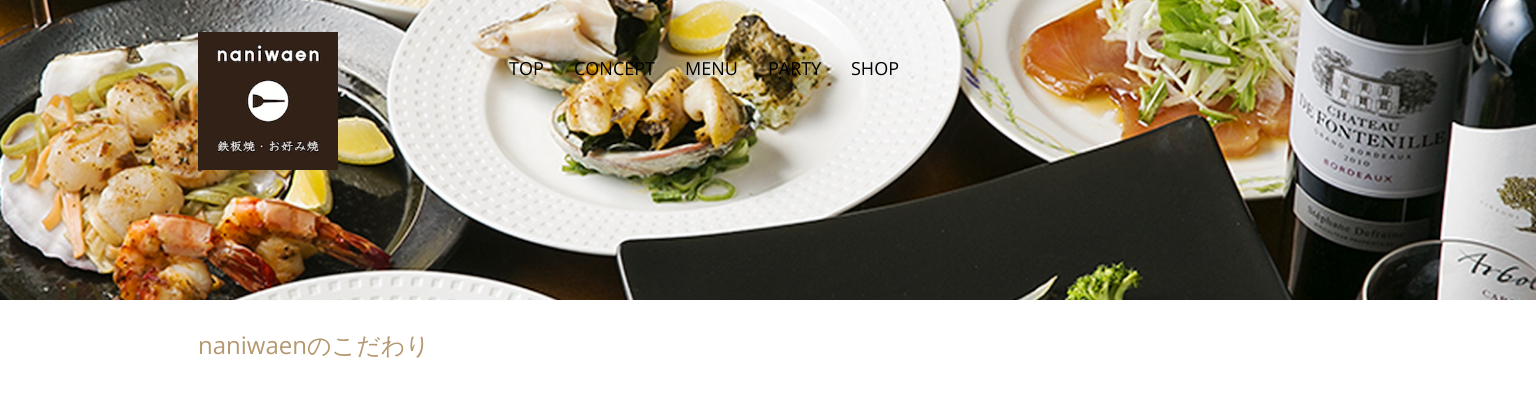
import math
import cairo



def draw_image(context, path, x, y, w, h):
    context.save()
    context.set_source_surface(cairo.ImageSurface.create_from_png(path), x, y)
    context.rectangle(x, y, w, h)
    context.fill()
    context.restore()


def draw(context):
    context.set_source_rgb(1, 1, 1)
    context.paint()
    draw_image(context, "images/1.png", 0, 0, 1536, 300)
    draw_image(context, "images/2.png", 198, 32, 140, 138)
    context.select_font_face("Open Sans")
    context.set_font_size(18)
    context.set_source_rgb(0, 0, 0)
    context.move_to(509, 75)
    context.show_text("TOP")
    context.move_to(574, 75)
    context.show_text("CONCEPT")
    context.move_to(685, 75)
    context.show_text("MENU")
    context.move_to(768, 75)
    context.show_text("PARTY")
    context.move_to(851, 75)
    context.show_text("SHOP")
    context.set_font_size(24)
    context.set_source_rgb(180 / 255, 151 / 255, 111 / 255)
    context.move_to(198, 354)
    context.show_text("naniwaen")
    context.select_font_face("WenQuanYi Zen Hei Medium")
    context.move_to(307, 354)
    context.show_text("のこだわり")


surface = cairo.ImageSurface(cairo.Format.RGB24, 1536, 403)
context = cairo.Context(surface)
options = cairo.FontOptions()
options.set_hint_metrics(cairo.HintMetrics.OFF)
options.set_hint_style(cairo.HintStyle.NONE)
context.set_font_options(options)
context.set_miter_limit(4)
draw(context)
surface.write_to_png("out.png")
